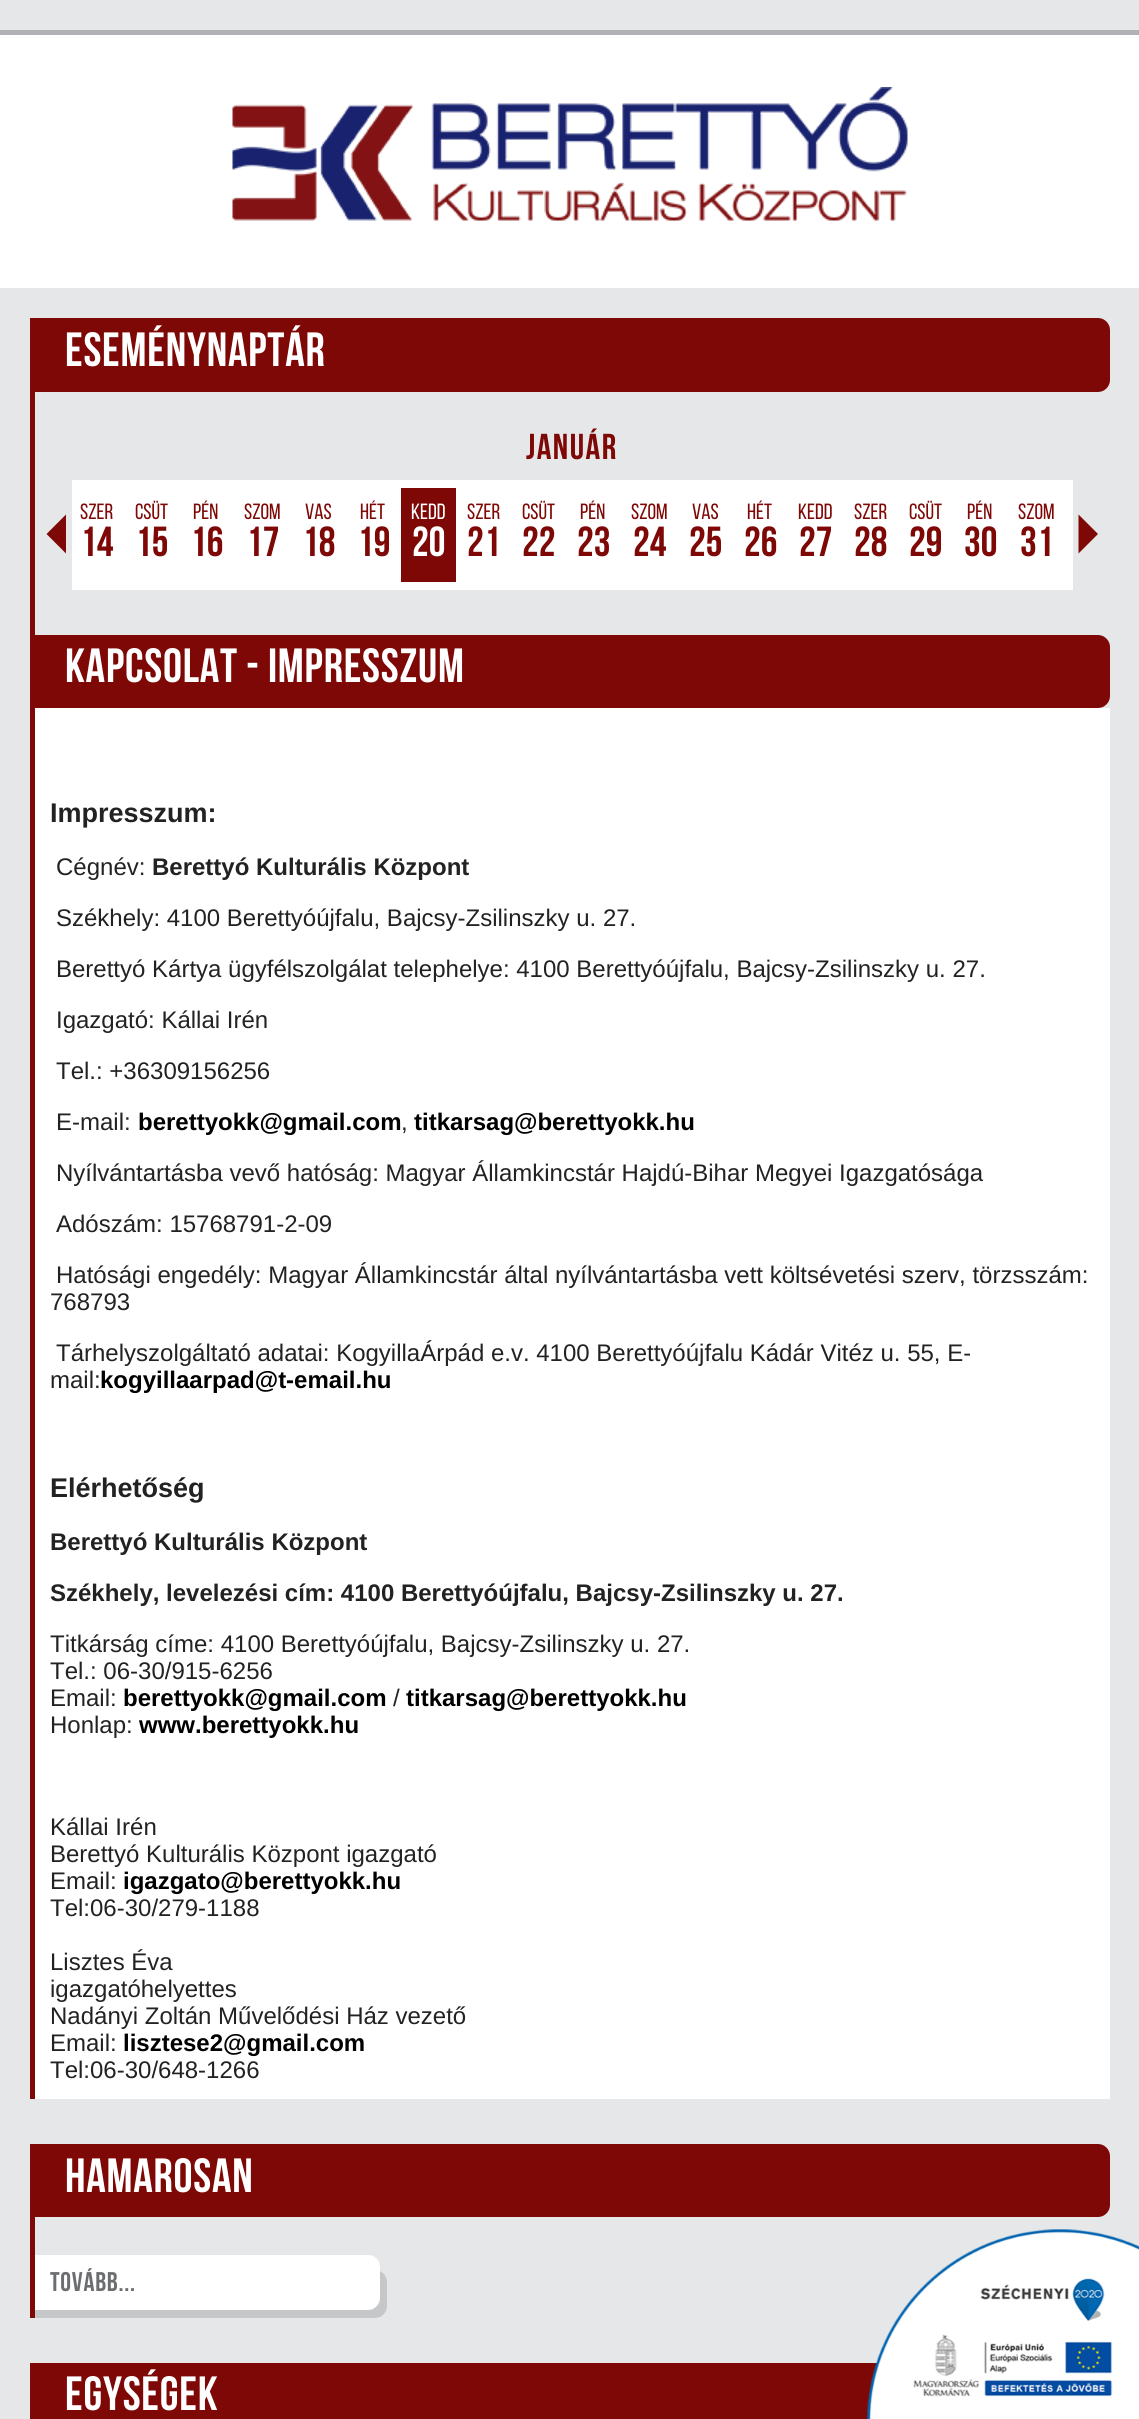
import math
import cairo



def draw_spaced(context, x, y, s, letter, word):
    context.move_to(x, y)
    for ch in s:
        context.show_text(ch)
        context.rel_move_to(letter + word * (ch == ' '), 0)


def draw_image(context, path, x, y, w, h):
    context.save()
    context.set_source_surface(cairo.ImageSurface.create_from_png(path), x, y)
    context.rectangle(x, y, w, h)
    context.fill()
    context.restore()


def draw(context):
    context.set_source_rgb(230 / 255, 231 / 255, 233 / 255)
    context.paint()
    context.set_source_rgb(1, 1, 1)
    context.rectangle(0, 35, 1139, 253)
    context.fill()
    context.set_source_rgb(177 / 255, 178 / 255, 182 / 255)
    context.rectangle(0, 30, 1139, 5)
    context.fill()
    draw_image(context, "images/1.png", 232, 87, 676, 134)
    context.set_source_rgb(126 / 255, 8 / 255, 5 / 255)
    context.rectangle(30, 318, 5, 1781)
    context.fill()
    context.new_path()
    context.move_to(35, 318)
    context.line_to(1098, 318)
    context.curve_to(1104.5, 318, 1110, 323.5, 1110, 330)
    context.line_to(1110, 380)
    context.curve_to(1110, 386.5, 1104.5, 392, 1098, 392)
    context.line_to(35, 392)
    context.close_path()
    context.fill()
    context.new_path()
    context.move_to(66, 514.5)
    context.line_to(66, 553.5)
    context.line_to(46.5, 534)
    context.close_path()
    context.fill()
    context.set_source_rgb(1, 1, 1)
    context.rectangle(72, 480, 1001, 110)
    context.fill()
    context.set_source_rgb(126 / 255, 8 / 255, 5 / 255)
    context.rectangle(401, 488, 55, 94)
    context.fill()
    context.new_path()
    context.move_to(1078.5, 553.5)
    context.line_to(1078.5, 514.5)
    context.line_to(1098, 534)
    context.close_path()
    context.fill()
    context.new_path()
    context.move_to(35, 635)
    context.line_to(1098, 635)
    context.curve_to(1104.5, 635, 1110, 640.5, 1110, 647)
    context.line_to(1110, 696)
    context.curve_to(1110, 702.5, 1104.5, 708, 1098, 708)
    context.line_to(35, 708)
    context.close_path()
    context.fill()
    context.set_source_rgb(1, 1, 1)
    context.rectangle(35, 708, 1075, 1391)
    context.fill()
    context.set_source_rgb(126 / 255, 8 / 255, 5 / 255)
    context.rectangle(30, 2144, 5, 174)
    context.fill()
    context.new_path()
    context.move_to(35, 2144)
    context.line_to(1098, 2144)
    context.curve_to(1104.5, 2144, 1110, 2149.5, 1110, 2156)
    context.line_to(1110, 2205)
    context.curve_to(1110, 2211.5, 1104.5, 2217, 1098, 2217)
    context.line_to(35, 2217)
    context.close_path()
    context.fill()
    context.set_source_rgb(197 / 255, 199 / 255, 200 / 255)
    context.new_path()
    context.move_to(35, 2270)
    context.line_to(375, 2270)
    context.curve_to(381.5, 2270, 387, 2275.5, 387, 2282)
    context.line_to(387, 2306)
    context.curve_to(387, 2312.5, 381.5, 2318, 375, 2318)
    context.line_to(35, 2318)
    context.close_path()
    context.fill()
    context.set_source_rgb(1, 1, 1)
    context.new_path()
    context.move_to(35, 2255)
    context.line_to(368, 2255)
    context.curve_to(374.5, 2255, 380, 2260.5, 380, 2267)
    context.line_to(380, 2298)
    context.curve_to(380, 2304.5, 374.5, 2310, 368, 2310)
    context.line_to(35, 2310)
    context.close_path()
    context.fill()
    context.set_source_rgb(126 / 255, 8 / 255, 5 / 255)
    context.rectangle(30, 2363, 1080, 56)
    context.fill()
    draw_image(context, "images/2.png", 866, 2229, 273, 190)
    context.select_font_face("Bebas Neue", cairo.FontSlant.NORMAL, cairo.FontWeight.BOLD)
    context.set_font_size(48)
    context.set_source_rgb(1, 1, 1)
    draw_spaced(context, 65, 366, "ESEMÉNYNAPTÁR", 0.75, 0)
    context.set_font_size(36)
    context.set_source_rgb(126 / 255, 8 / 255, 5 / 255)
    draw_spaced(context, 526, 459, "JANUÁR", 1.5, 0)
    context.select_font_face("Bebas Neue")
    context.set_font_size(22)
    context.move_to(80, 519)
    context.show_text("SZER")
    context.select_font_face("Bebas Neue", cairo.FontSlant.NORMAL, cairo.FontWeight.BOLD)
    context.set_font_size(42)
    context.move_to(80, 556)
    context.show_text("14")
    context.select_font_face("Bebas Neue")
    context.set_font_size(22)
    context.move_to(135, 519)
    context.show_text("CSÜT")
    context.select_font_face("Bebas Neue", cairo.FontSlant.NORMAL, cairo.FontWeight.BOLD)
    context.set_font_size(42)
    context.move_to(135, 556)
    context.show_text("15")
    context.select_font_face("Bebas Neue")
    context.set_font_size(22)
    context.move_to(193, 519)
    context.show_text("PÉN")
    context.select_font_face("Bebas Neue", cairo.FontSlant.NORMAL, cairo.FontWeight.BOLD)
    context.set_font_size(42)
    context.move_to(190, 556)
    context.show_text("16")
    context.select_font_face("Bebas Neue")
    context.set_font_size(22)
    context.move_to(244, 519)
    context.show_text("SZOM")
    context.select_font_face("Bebas Neue", cairo.FontSlant.NORMAL, cairo.FontWeight.BOLD)
    context.set_font_size(42)
    context.move_to(246, 556)
    context.show_text("17")
    context.select_font_face("Bebas Neue")
    context.set_font_size(22)
    context.move_to(305, 519)
    context.show_text("VAS")
    context.select_font_face("Bebas Neue", cairo.FontSlant.NORMAL, cairo.FontWeight.BOLD)
    context.set_font_size(42)
    context.move_to(302, 556)
    context.show_text("18")
    context.select_font_face("Bebas Neue")
    context.set_font_size(22)
    context.move_to(360, 519)
    context.show_text("HÉT")
    context.select_font_face("Bebas Neue", cairo.FontSlant.NORMAL, cairo.FontWeight.BOLD)
    context.set_font_size(42)
    context.move_to(357, 556)
    context.show_text("19")
    context.select_font_face("Bebas Neue")
    context.set_font_size(22)
    context.set_source_rgb(1, 1, 1)
    context.move_to(411, 519)
    context.show_text("KEDD")
    context.select_font_face("Bebas Neue", cairo.FontSlant.NORMAL, cairo.FontWeight.BOLD)
    context.set_font_size(42)
    context.move_to(412, 556)
    context.show_text("20")
    context.select_font_face("Bebas Neue")
    context.set_font_size(22)
    context.set_source_rgb(126 / 255, 8 / 255, 5 / 255)
    context.move_to(467, 519)
    context.show_text("SZER")
    context.select_font_face("Bebas Neue", cairo.FontSlant.NORMAL, cairo.FontWeight.BOLD)
    context.set_font_size(42)
    context.move_to(467, 556)
    context.show_text("21")
    context.select_font_face("Bebas Neue")
    context.set_font_size(22)
    context.move_to(522, 519)
    context.show_text("CSÜT")
    context.select_font_face("Bebas Neue", cairo.FontSlant.NORMAL, cairo.FontWeight.BOLD)
    context.set_font_size(42)
    context.move_to(522, 556)
    context.show_text("22")
    context.select_font_face("Bebas Neue")
    context.set_font_size(22)
    context.move_to(580, 519)
    context.show_text("PÉN")
    context.select_font_face("Bebas Neue", cairo.FontSlant.NORMAL, cairo.FontWeight.BOLD)
    context.set_font_size(42)
    context.move_to(577, 556)
    context.show_text("23")
    context.select_font_face("Bebas Neue")
    context.set_font_size(22)
    context.move_to(631, 519)
    context.show_text("SZOM")
    context.select_font_face("Bebas Neue", cairo.FontSlant.NORMAL, cairo.FontWeight.BOLD)
    context.set_font_size(42)
    context.move_to(633, 556)
    context.show_text("24")
    context.select_font_face("Bebas Neue")
    context.set_font_size(22)
    context.move_to(692, 519)
    context.show_text("VAS")
    context.select_font_face("Bebas Neue", cairo.FontSlant.NORMAL, cairo.FontWeight.BOLD)
    context.set_font_size(42)
    context.move_to(689, 556)
    context.show_text("25")
    context.select_font_face("Bebas Neue")
    context.set_font_size(22)
    context.move_to(747, 519)
    context.show_text("HÉT")
    context.select_font_face("Bebas Neue", cairo.FontSlant.NORMAL, cairo.FontWeight.BOLD)
    context.set_font_size(42)
    context.move_to(744, 556)
    context.show_text("26")
    context.select_font_face("Bebas Neue")
    context.set_font_size(22)
    context.move_to(798, 519)
    context.show_text("KEDD")
    context.select_font_face("Bebas Neue", cairo.FontSlant.NORMAL, cairo.FontWeight.BOLD)
    context.set_font_size(42)
    context.move_to(799, 556)
    context.show_text("27")
    context.select_font_face("Bebas Neue")
    context.set_font_size(22)
    context.move_to(854, 519)
    context.show_text("SZER")
    context.select_font_face("Bebas Neue", cairo.FontSlant.NORMAL, cairo.FontWeight.BOLD)
    context.set_font_size(42)
    context.move_to(854, 556)
    context.show_text("28")
    context.select_font_face("Bebas Neue")
    context.set_font_size(22)
    context.move_to(909, 519)
    context.show_text("CSÜT")
    context.select_font_face("Bebas Neue", cairo.FontSlant.NORMAL, cairo.FontWeight.BOLD)
    context.set_font_size(42)
    context.move_to(909, 556)
    context.show_text("29")
    context.select_font_face("Bebas Neue")
    context.set_font_size(22)
    context.move_to(967, 519)
    context.show_text("PÉN")
    context.select_font_face("Bebas Neue", cairo.FontSlant.NORMAL, cairo.FontWeight.BOLD)
    context.set_font_size(42)
    context.move_to(964, 556)
    context.show_text("30")
    context.select_font_face("Bebas Neue")
    context.set_font_size(22)
    context.move_to(1018, 519)
    context.show_text("SZOM")
    context.select_font_face("Bebas Neue", cairo.FontSlant.NORMAL, cairo.FontWeight.BOLD)
    context.set_font_size(42)
    context.move_to(1020, 556)
    context.show_text("31")
    context.set_font_size(48)
    context.set_source_rgb(1, 1, 1)
    draw_spaced(context, 65, 682, "KAPCSOLAT - IMPRESSZUM", 0.75, 0)
    context.select_font_face("Liberation Sans", cairo.FontSlant.NORMAL, cairo.FontWeight.BOLD)
    context.set_font_size(27)
    context.set_source_rgb(34 / 255, 34 / 255, 34 / 255)
    context.move_to(50, 822)
    context.show_text("Impresszum:")
    context.select_font_face("Liberation Sans")
    context.set_font_size(24)
    context.move_to(56, 875)
    context.show_text("Cégnév:")
    context.select_font_face("Liberation Sans", cairo.FontSlant.NORMAL, cairo.FontWeight.BOLD)
    context.move_to(152, 875)
    context.show_text("Berettyó Kulturális Központ")
    context.select_font_face("Liberation Sans")
    context.move_to(56, 926)
    context.show_text("Székhely: 4100 Berettyóújfalu, Bajcsy-Zsilinszky u. 27.")
    context.move_to(56, 977)
    context.show_text("Berettyó Kártya ügyfélszolgálat telephelye: 4100 Berettyóújfalu, Bajcsy-Zsilinszky u. 27.")
    context.move_to(56, 1028)
    context.show_text("Igazgató: Kállai Irén")
    context.move_to(56, 1079)
    context.show_text("Tel.: +36309156256")
    context.move_to(56, 1130)
    context.show_text("E-mail:")
    context.select_font_face("Liberation Sans", cairo.FontSlant.NORMAL, cairo.FontWeight.BOLD)
    context.set_source_rgb(0, 0, 0)
    context.move_to(138, 1130)
    context.show_text("berettyokk@gmail.com")
    context.select_font_face("Liberation Sans")
    context.set_source_rgb(34 / 255, 34 / 255, 34 / 255)
    context.move_to(401, 1130)
    context.show_text(",")
    context.select_font_face("Liberation Sans", cairo.FontSlant.NORMAL, cairo.FontWeight.BOLD)
    context.set_source_rgb(0, 0, 0)
    context.move_to(414, 1130)
    context.show_text("titkarsag@berettyokk.hu")
    context.select_font_face("Liberation Sans")
    context.set_source_rgb(34 / 255, 34 / 255, 34 / 255)
    context.move_to(56, 1181)
    context.show_text("Nyílvántartásba vevő hatóság: Magyar Államkincstár Hajdú-Bihar Megyei Igazgatósága")
    context.move_to(56, 1232)
    context.show_text("Adószám: 15768791-2-09")
    context.move_to(56, 1283)
    context.show_text("Hatósági engedély: Magyar Államkincstár által nyílvántartásba vett költsévetési szerv, törzsszám:")
    context.move_to(50, 1310)
    context.show_text("768793")
    context.move_to(56, 1361)
    context.show_text("Tárhelyszolgáltató adatai: KogyillaÁrpád e.v. 4100 Berettyóújfalu Kádár Vitéz u. 55, E-")
    context.move_to(50, 1388)
    context.show_text("mail:")
    context.select_font_face("Liberation Sans", cairo.FontSlant.NORMAL, cairo.FontWeight.BOLD)
    context.set_source_rgb(0, 0, 0)
    context.move_to(100, 1388)
    context.show_text("kogyillaarpad@t-email.hu")
    context.set_font_size(27)
    context.set_source_rgb(34 / 255, 34 / 255, 34 / 255)
    context.move_to(50, 1497)
    context.show_text("Elérhetőség")
    context.set_font_size(24)
    context.move_to(50, 1550)
    context.show_text("Berettyó Kulturális Központ")
    context.move_to(50, 1601)
    context.show_text("Székhely, levelezési cím: 4100 Berettyóújfalu, Bajcsy-Zsilinszky u. 27.")
    context.select_font_face("Liberation Sans")
    context.move_to(50, 1652)
    context.show_text("Titkárság címe: 4100 Berettyóújfalu, Bajcsy-Zsilinszky u. 27.")
    context.move_to(50, 1679)
    context.show_text("Tel.: 06-30/915-6256")
    context.move_to(50, 1706)
    context.show_text("Email:")
    context.select_font_face("Liberation Sans", cairo.FontSlant.NORMAL, cairo.FontWeight.BOLD)
    context.set_source_rgb(0, 0, 0)
    context.move_to(123, 1706)
    context.show_text("berettyokk@gmail.com")
    context.select_font_face("Liberation Sans")
    context.set_source_rgb(34 / 255, 34 / 255, 34 / 255)
    context.move_to(393, 1706)
    context.show_text("/")
    context.select_font_face("Liberation Sans", cairo.FontSlant.NORMAL, cairo.FontWeight.BOLD)
    context.set_source_rgb(0, 0, 0)
    context.move_to(406, 1706)
    context.show_text("titkarsag@berettyokk.hu")
    context.select_font_face("Liberation Sans")
    context.set_source_rgb(34 / 255, 34 / 255, 34 / 255)
    context.move_to(50, 1733)
    context.show_text("Honlap:")
    context.select_font_face("Liberation Sans", cairo.FontSlant.NORMAL, cairo.FontWeight.BOLD)
    context.set_source_rgb(0, 0, 0)
    context.move_to(139, 1733)
    context.show_text("www.berettyokk.hu")
    context.select_font_face("Liberation Sans")
    context.set_source_rgb(34 / 255, 34 / 255, 34 / 255)
    context.move_to(50, 1835)
    context.show_text("Kállai Irén")
    context.move_to(50, 1862)
    context.show_text("Berettyó Kulturális Központ igazgató")
    context.move_to(50, 1889)
    context.show_text("Email:")
    context.select_font_face("Liberation Sans", cairo.FontSlant.NORMAL, cairo.FontWeight.BOLD)
    context.set_source_rgb(0, 0, 0)
    context.move_to(123, 1889)
    context.show_text("igazgato@berettyokk.hu")
    context.select_font_face("Liberation Sans")
    context.set_source_rgb(34 / 255, 34 / 255, 34 / 255)
    context.move_to(50, 1916)
    context.show_text("Tel:06-30/279-1188")
    context.move_to(50, 1970)
    context.show_text("Lisztes Éva")
    context.move_to(50, 1997)
    context.show_text("igazgatóhelyettes")
    context.move_to(50, 2024)
    context.show_text("Nadányi Zoltán Művelődési Ház vezető")
    context.move_to(50, 2051)
    context.show_text("Email:")
    context.select_font_face("Liberation Sans", cairo.FontSlant.NORMAL, cairo.FontWeight.BOLD)
    context.set_source_rgb(0, 0, 0)
    context.move_to(123, 2051)
    context.show_text("lisztese2@gmail.com")
    context.select_font_face("Liberation Sans")
    context.set_source_rgb(34 / 255, 34 / 255, 34 / 255)
    context.move_to(50, 2078)
    context.show_text("Tel:06-30/648-1266")
    context.select_font_face("Bebas Neue", cairo.FontSlant.NORMAL, cairo.FontWeight.BOLD)
    context.set_font_size(48)
    context.set_source_rgb(1, 1, 1)
    draw_spaced(context, 65, 2192, "HAMAROSAN", 0.75, 0)
    context.set_font_size(27)
    context.set_source_rgb(108 / 255, 109 / 255, 112 / 255)
    draw_spaced(context, 50, 2291, "TOVÁBB...", 0.75, 0)
    context.set_font_size(48)
    context.set_source_rgb(1, 1, 1)
    draw_spaced(context, 65, 2410, "EGYSÉGEK", 0.75, 0)


surface = cairo.ImageSurface(cairo.Format.RGB24, 1139, 2419)
context = cairo.Context(surface)
options = cairo.FontOptions()
options.set_hint_metrics(cairo.HintMetrics.OFF)
options.set_hint_style(cairo.HintStyle.NONE)
context.set_font_options(options)
context.set_miter_limit(4)
draw(context)
surface.write_to_png("out.png")
